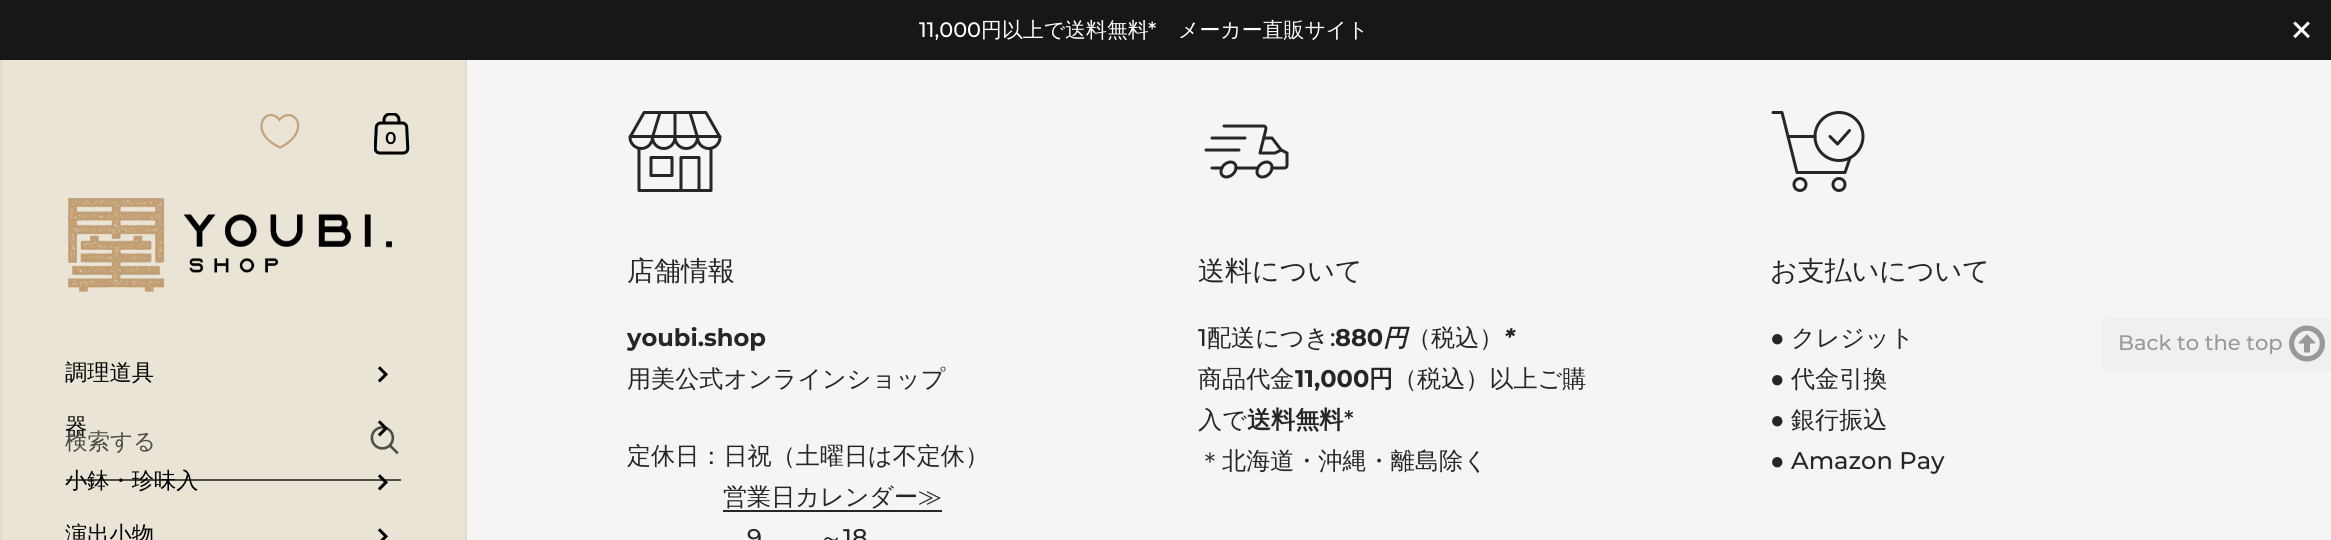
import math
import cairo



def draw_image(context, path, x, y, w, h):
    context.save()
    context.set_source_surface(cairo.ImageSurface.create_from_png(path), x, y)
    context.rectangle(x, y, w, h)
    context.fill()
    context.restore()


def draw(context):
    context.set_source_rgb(245 / 255, 245 / 255, 245 / 255)
    context.paint()
    context.set_source_rgb(23 / 255, 23 / 255, 23 / 255)
    context.rectangle(0, 0, 2331, 60)
    context.fill()
    draw_image(context, "images/1.png", 2293, 21, 17, 18)
    context.set_source_rgb(233 / 255, 228 / 255, 214 / 255)
    context.rectangle(2, 60, 463, 480)
    context.fill()
    context.set_source_rgb(226 / 255, 219 / 255, 201 / 255)
    context.rectangle(465, 60, 2, 480)
    context.fill()
    context.new_path()
    context.move_to(280, 147.5)
    context.curve_to(272.5, 144, 264, 138, 262, 130)
    context.curve_to(259.5, 121.5, 266, 112, 275, 116)
    context.curve_to(277, 116.5, 278, 118, 279.5, 120)
    context.curve_to(281, 118, 282.5, 116.5, 284.5, 116)
    context.curve_to(292.5, 112.5, 299.5, 120, 298, 127.5)
    context.curve_to(297, 137, 288, 143.5, 280, 147.5)
    context.close_path()
    context.set_source_rgb(195 / 255, 162 / 255, 123 / 255)
    context.set_line_width(2.2)
    context.stroke()
    draw_image(context, "images/2.png", 374, 113, 36, 42)
    draw_image(context, "images/3.png", 68, 198, 324, 94)
    draw_image(context, "images/4.png", 377, 366, 11, 17)
    draw_image(context, "images/4.png", 377, 420, 11, 17)
    draw_image(context, "images/4.png", 377, 474, 11, 17)
    draw_image(context, "images/5.png", 377, 528, 11, 12)
    context.set_source_rgb(226 / 255, 219 / 255, 201 / 255)
    context.rectangle(0, 60, 2, 480)
    context.fill()
    draw_image(context, "images/6.png", 370, 426, 29, 29)
    draw_image(context, "images/7.png", 628, 111, 94, 81)
    context.set_source_rgb(38 / 255, 38 / 255, 38 / 255)
    context.rectangle(723, 510, 219, 2)
    context.fill()
    draw_image(context, "images/8.png", 1204, 124, 85, 55)
    context.new_path()
    context.move_to(1815, 136.5)
    context.line_to(1788, 136.5)
    context.move_to(1773, 112.5)
    context.line_to(1782, 112.5)
    context.line_to(1797, 172.5)
    context.line_to(1845, 172.5)
    context.line_to(1850, 158)
    context.set_line_width(3)
    context.set_line_cap(cairo.LineCap.ROUND)
    context.set_line_join(cairo.LineJoin.ROUND)
    context.stroke()
    context.arc(1839, 136.5, 24, 0, 2 * math.pi)
    context.set_line_cap(cairo.LineCap.BUTT)
    context.set_line_join(cairo.LineJoin.MITER)
    context.stroke()
    context.new_path()
    context.move_to(1849.5, 130.5)
    context.line_to(1837.5, 144)
    context.line_to(1830, 136.5)
    context.set_line_cap(cairo.LineCap.ROUND)
    context.set_line_join(cairo.LineJoin.ROUND)
    context.stroke()
    context.arc(1800, 184.5, 6, 0, 2 * math.pi)
    context.set_line_cap(cairo.LineCap.BUTT)
    context.set_line_join(cairo.LineJoin.MITER)
    context.stroke()
    context.arc(1839, 184.5, 6, 0, 2 * math.pi)
    context.stroke()
    context.set_source_rgb(240 / 255, 240 / 255, 240 / 255)
    context.new_path()
    context.move_to(2107, 318)
    context.line_to(2331, 318)
    context.line_to(2331, 372)
    context.line_to(2107, 372)
    context.curve_to(2104, 372, 2102, 370, 2102, 367)
    context.line_to(2102, 323)
    context.curve_to(2102, 320, 2104, 318, 2107, 318)
    context.close_path()
    context.fill()
    draw_image(context, "images/9.png", 2289, 325, 36, 37)
    context.select_font_face("Montserrat Medium")
    context.set_font_size(20.9)
    context.set_source_rgb(1, 1, 1)
    context.move_to(919, 37)
    context.show_text("11,000")
    context.select_font_face("WenQuanYi Zen Hei Medium")
    context.move_to(981, 37)
    context.show_text("円以上で送料無料")
    context.select_font_face("Montserrat Medium")
    context.move_to(1148, 37)
    context.show_text("*")
    context.select_font_face("WenQuanYi Zen Hei Medium")
    context.move_to(1178, 37)
    context.show_text("メーカー直販サイト")
    context.select_font_face("Montserrat SemiBold")
    context.set_font_size(17)
    context.set_source_rgb(0, 0, 0)
    context.move_to(385, 144)
    context.show_text("0")
    context.select_font_face("WenQuanYi Zen Hei Medium")
    context.set_font_size(22.25)
    context.move_to(65, 380)
    context.show_text("調理道具")
    context.move_to(65, 434)
    context.show_text("器")
    context.move_to(65, 488)
    context.show_text("小鉢・珍味入")
    context.move_to(65, 542)
    context.show_text("演出小物")
    context.set_source_rgba(0, 0, 0, 0.66)
    context.rectangle(66, 479, 335, 2)
    context.fill()
    context.set_font_size(22.5)
    context.set_source_rgb(77 / 255, 75 / 255, 71 / 255)
    context.move_to(65, 449)
    context.show_text("検索する")
    context.set_font_size(27)
    context.set_source_rgb(38 / 255, 38 / 255, 38 / 255)
    context.move_to(627, 280)
    context.show_text("店舗情報")
    context.select_font_face("Montserrat", cairo.FontSlant.NORMAL, cairo.FontWeight.BOLD)
    context.set_font_size(24.1)
    context.move_to(627, 346)
    context.show_text("youbi.shop")
    context.select_font_face("WenQuanYi Zen Hei Medium")
    context.move_to(627, 387)
    context.show_text("用美公式オンラインショップ")
    context.move_to(627, 464)
    context.show_text("定休日：日祝（土曜日は不定休）")
    context.move_to(723, 505)
    context.show_text("営業日カレンダー≫")
    context.select_font_face("Montserrat Medium")
    context.move_to(747, 546)
    context.show_text("9")
    context.select_font_face("WenQuanYi Zen Hei Medium")
    context.move_to(819, 546)
    context.show_text("～")
    context.select_font_face("Montserrat Medium")
    context.move_to(843, 546)
    context.show_text("18")
    context.select_font_face("WenQuanYi Zen Hei Medium")
    context.set_font_size(27)
    context.move_to(1198, 280)
    context.show_text("送料について")
    context.select_font_face("Montserrat Medium")
    context.set_font_size(24.1)
    context.move_to(1198, 346)
    context.show_text("1")
    context.select_font_face("WenQuanYi Zen Hei Medium")
    context.move_to(1207, 346)
    context.show_text("配送につき")
    context.select_font_face("Montserrat Medium")
    context.move_to(1330, 346)
    context.show_text(":")
    context.select_font_face("Montserrat", cairo.FontSlant.NORMAL, cairo.FontWeight.BOLD)
    context.move_to(1335, 346)
    context.show_text("880")
    context.select_font_face("WenQuanYi Zen Hei", cairo.FontSlant.ITALIC, cairo.FontWeight.BOLD)
    context.move_to(1383, 346)
    context.show_text("円")
    context.select_font_face("WenQuanYi Zen Hei Medium")
    context.move_to(1407, 346)
    context.show_text("（税込）")
    context.select_font_face("Montserrat", cairo.FontSlant.ITALIC, cairo.FontWeight.BOLD)
    context.move_to(1504, 346)
    context.show_text("*")
    context.select_font_face("WenQuanYi Zen Hei Medium")
    context.move_to(1198, 387)
    context.show_text("商品代金")
    context.select_font_face("Montserrat", cairo.FontSlant.NORMAL, cairo.FontWeight.BOLD)
    context.move_to(1295, 387)
    context.show_text("11,000")
    context.select_font_face("WenQuanYi Zen Hei", cairo.FontSlant.NORMAL, cairo.FontWeight.BOLD)
    context.move_to(1369, 387)
    context.show_text("円")
    context.select_font_face("WenQuanYi Zen Hei Medium")
    context.move_to(1393, 387)
    context.show_text("（税込）以上ご購")
    context.move_to(1198, 428)
    context.show_text("入で")
    context.select_font_face("WenQuanYi Zen Hei", cairo.FontSlant.NORMAL, cairo.FontWeight.BOLD)
    context.move_to(1247, 428)
    context.show_text("送料無料")
    context.select_font_face("Montserrat Medium")
    context.move_to(1344, 428)
    context.show_text("*")
    context.select_font_face("WenQuanYi Zen Hei Medium")
    context.move_to(1198, 469)
    context.show_text("＊北海道・沖縄・離島除く")
    context.set_font_size(27)
    context.move_to(1770, 280)
    context.show_text("お支払いについて")
    context.select_font_face("Liberation Sans")
    context.set_font_size(24.1)
    context.move_to(1770, 346)
    context.show_text("●")
    context.select_font_face("WenQuanYi Zen Hei Medium")
    context.move_to(1791, 346)
    context.show_text("クレジット")
    context.select_font_face("Liberation Sans")
    context.move_to(1770, 387)
    context.show_text("●")
    context.select_font_face("WenQuanYi Zen Hei Medium")
    context.move_to(1791, 387)
    context.show_text("代金引換")
    context.select_font_face("Liberation Sans")
    context.move_to(1770, 428)
    context.show_text("●")
    context.select_font_face("WenQuanYi Zen Hei Medium")
    context.move_to(1791, 428)
    context.show_text("銀行振込")
    context.select_font_face("Liberation Sans")
    context.move_to(1770, 469)
    context.show_text("●")
    context.select_font_face("Montserrat Medium")
    context.move_to(1791, 469)
    context.show_text("Amazon Pay")
    context.set_font_size(21)
    context.set_source_rgb(153 / 255, 153 / 255, 153 / 255)
    context.move_to(2118, 350)
    context.show_text("Back to the top")


surface = cairo.ImageSurface(cairo.Format.RGB24, 2331, 540)
context = cairo.Context(surface)
options = cairo.FontOptions()
options.set_hint_metrics(cairo.HintMetrics.OFF)
options.set_hint_style(cairo.HintStyle.NONE)
context.set_font_options(options)
context.set_miter_limit(4)
draw(context)
surface.write_to_png("out.png")
